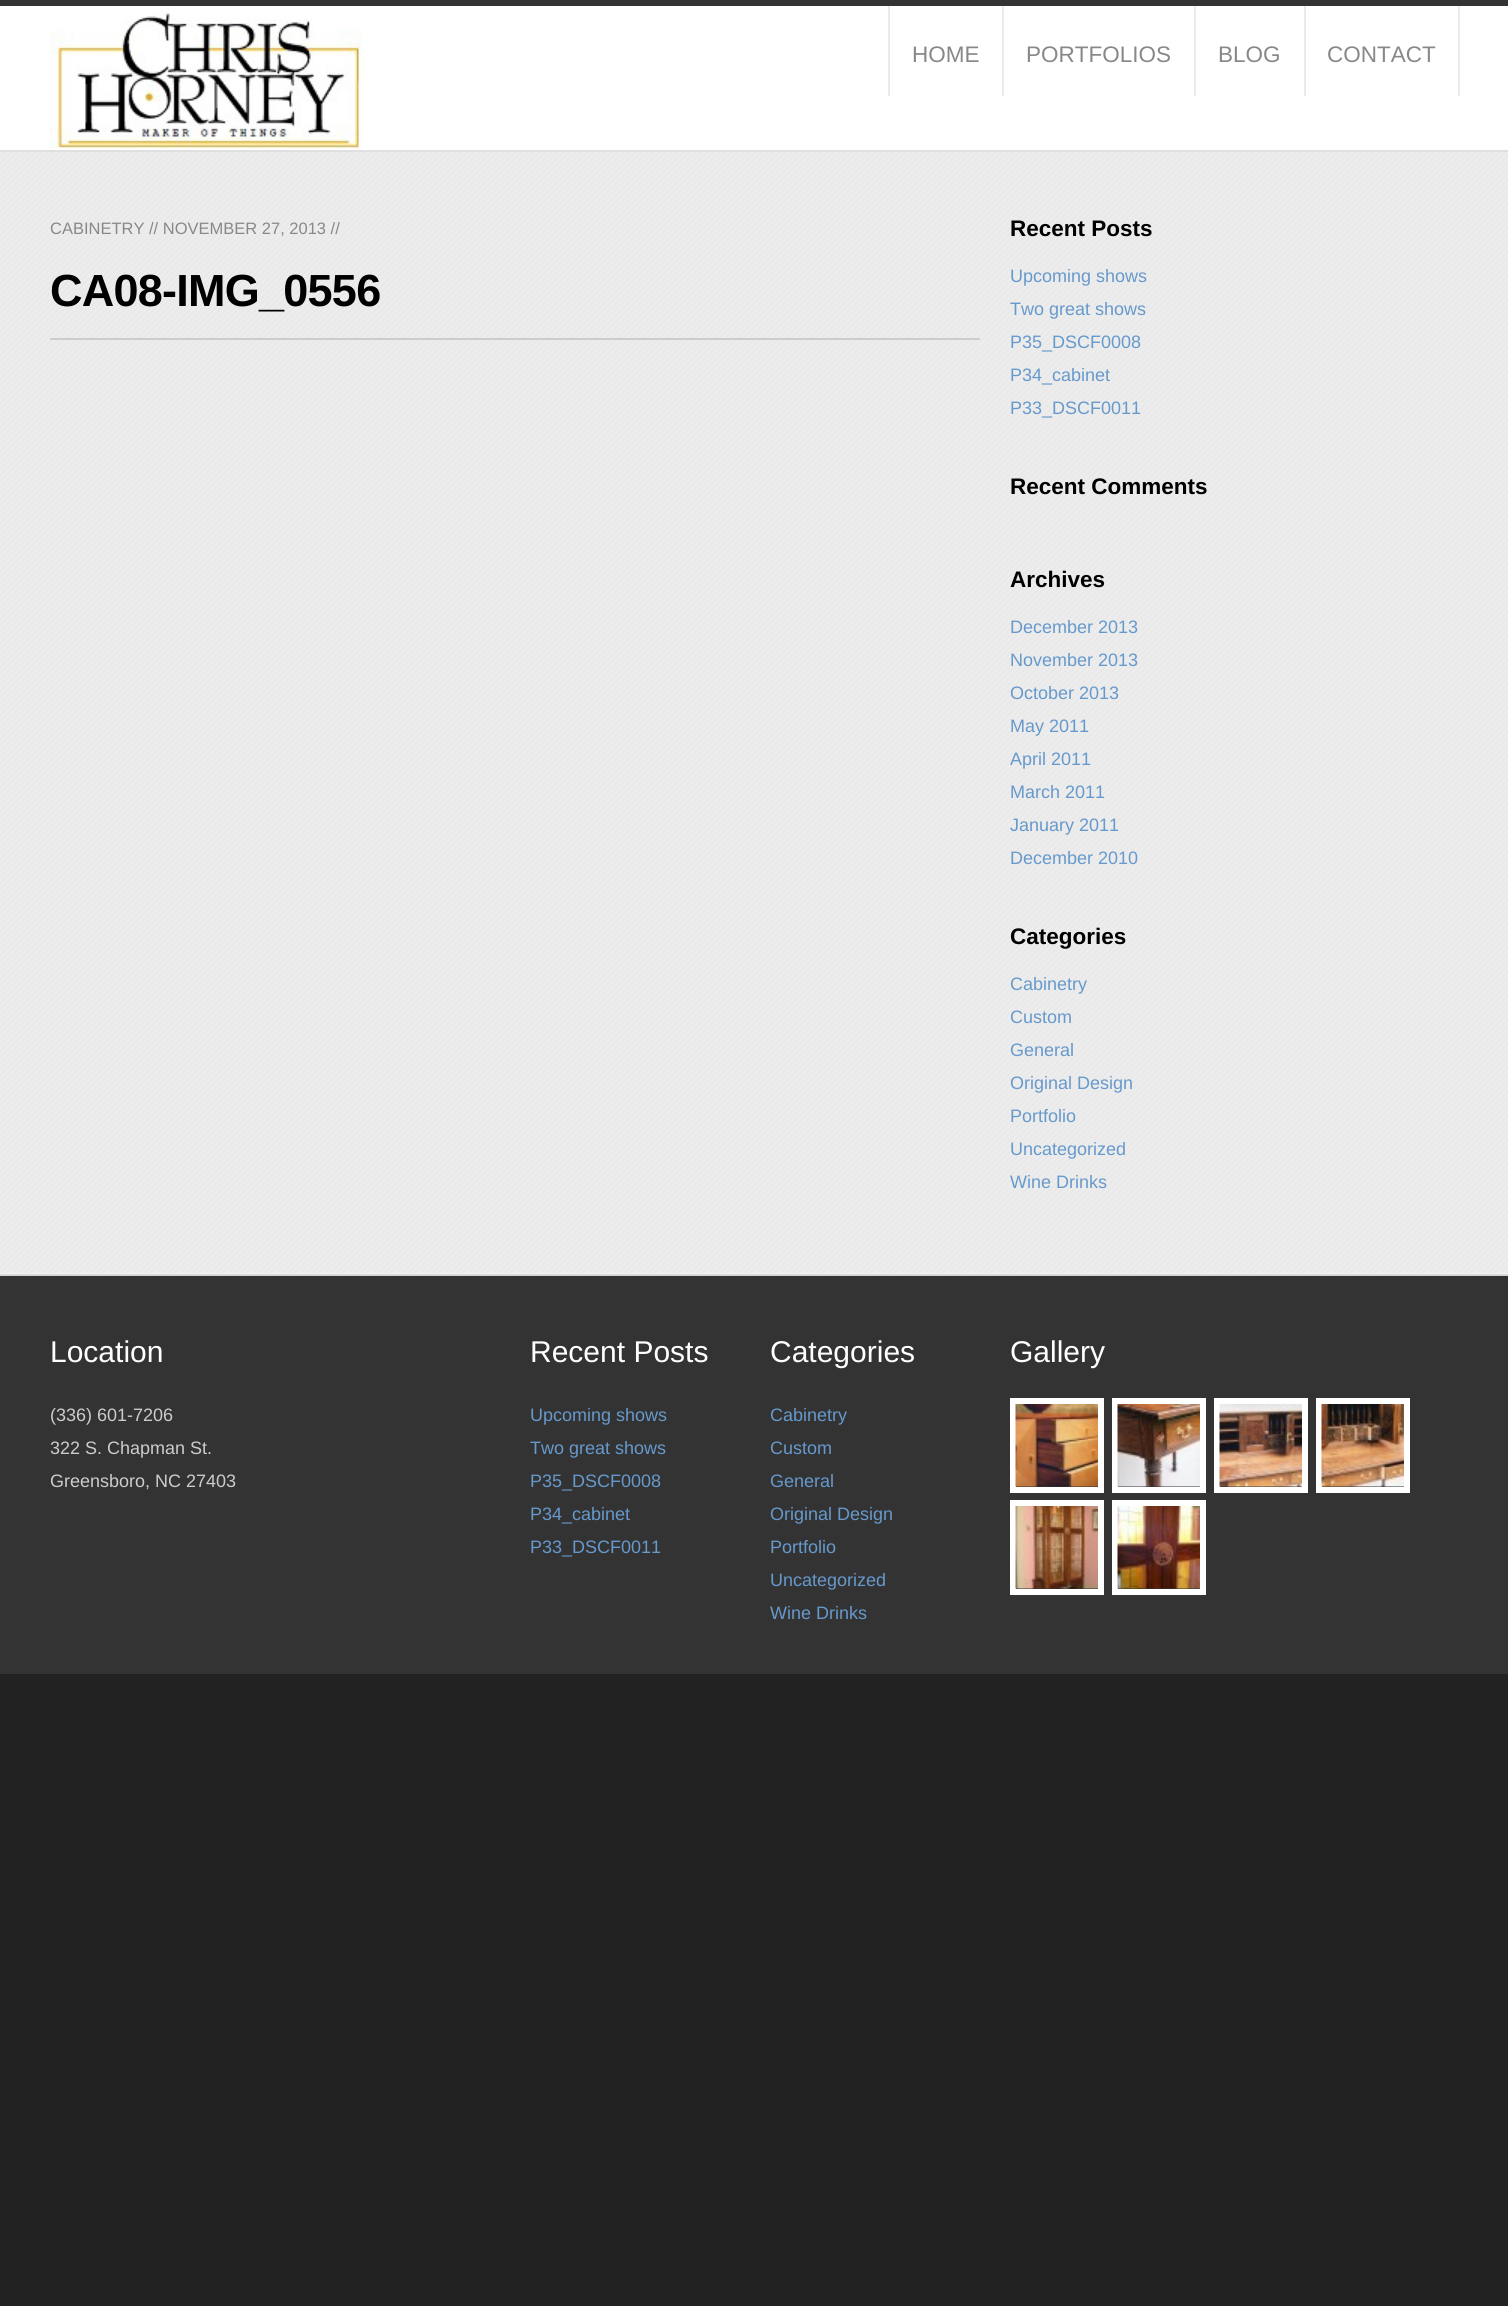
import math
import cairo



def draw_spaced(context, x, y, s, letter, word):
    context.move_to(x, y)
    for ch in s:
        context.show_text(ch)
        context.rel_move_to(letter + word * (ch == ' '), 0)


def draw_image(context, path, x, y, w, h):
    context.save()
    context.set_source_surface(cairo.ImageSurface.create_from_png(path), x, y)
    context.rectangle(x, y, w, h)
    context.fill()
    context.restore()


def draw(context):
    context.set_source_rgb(34 / 255, 34 / 255, 34 / 255)
    context.paint()
    context.set_source_rgb(1, 1, 1)
    context.rectangle(0, 6, 1508, 144)
    context.fill()
    context.set_source_rgb(51 / 255, 51 / 255, 51 / 255)
    context.rectangle(0, 0, 1508, 6)
    context.fill()
    context.set_source_rgb(224 / 255, 224 / 255, 224 / 255)
    context.rectangle(0, 150, 1508, 2)
    context.fill()
    draw_image(context, "images/1.png", 49, 13, 313, 136)
    context.set_source_rgb(235 / 255, 235 / 255, 235 / 255)
    context.rectangle(1002, 6, 2, 90)
    context.fill()
    context.rectangle(888, 6, 2, 90)
    context.fill()
    context.rectangle(1194, 6, 2, 90)
    context.fill()
    context.rectangle(1304, 6, 2, 90)
    context.fill()
    context.rectangle(1458, 6, 2, 90)
    context.fill()
    context.set_source_rgb(1, 1, 1)
    context.rectangle(0, 1273, 1508, 1)
    context.fill()
    draw_image(context, "images/2.png", 0, 152, 1508, 1122)
    context.set_source_rgb(204 / 255, 204 / 255, 204 / 255)
    context.rectangle(50, 338, 930, 2)
    context.fill()
    context.set_source_rgb(51 / 255, 51 / 255, 51 / 255)
    context.rectangle(0, 1276, 1508, 398)
    context.fill()
    context.set_source_rgb(214 / 255, 214 / 255, 214 / 255)
    context.rectangle(0, 1274, 1508, 2)
    context.fill()
    context.rectangle(1013, 1401, 88, 89)
    context.set_source_rgb(1, 1, 1)
    context.set_line_width(6)
    context.stroke()
    draw_image(context, "images/3.png", 1015, 1404, 83, 83)
    context.rectangle(1115, 1401, 88, 89)
    context.stroke()
    draw_image(context, "images/4.png", 1117, 1404, 83, 83)
    context.rectangle(1217, 1401, 88, 89)
    context.stroke()
    draw_image(context, "images/5.png", 1219, 1404, 83, 83)
    context.rectangle(1319, 1401, 88, 89)
    context.stroke()
    draw_image(context, "images/6.png", 1321, 1404, 83, 83)
    context.rectangle(1013, 1503, 88, 89)
    context.stroke()
    draw_image(context, "images/7.png", 1015, 1506, 83, 83)
    context.rectangle(1115, 1503, 88, 89)
    context.stroke()
    draw_image(context, "images/8.png", 1117, 1506, 83, 83)
    context.select_font_face("Liberation Sans")
    context.set_font_size(22.5)
    context.set_source_rgb(136 / 255, 136 / 255, 136 / 255)
    context.move_to(912, 62)
    context.show_text("HOME")
    context.move_to(1026, 62)
    context.show_text("PORTFOLIOS")
    context.move_to(1218, 62)
    context.show_text("BLOG")
    context.move_to(1327, 62)
    context.show_text("CONTACT")
    context.set_font_size(16.5)
    context.move_to(50, 234)
    context.show_text("CABINETRY // NOVEMBER 27, 2013 //")
    context.select_font_face("Liberation Sans", cairo.FontSlant.NORMAL, cairo.FontWeight.BOLD)
    context.set_font_size(45)
    context.set_source_rgb(0, 0, 0)
    draw_spaced(context, 50, 306, "CA08-IMG_0556", -0.75, 0)
    context.set_font_size(22.5)
    context.move_to(1010, 236)
    context.show_text("Recent Posts")
    context.select_font_face("Liberation Sans")
    context.set_font_size(18)
    context.set_source_rgb(102 / 255, 153 / 255, 204 / 255)
    context.move_to(1010, 282)
    context.show_text("Upcoming shows")
    context.move_to(1010, 315)
    context.show_text("Two great shows")
    context.move_to(1010, 348)
    context.show_text("P35_DSCF0008")
    context.move_to(1010, 381)
    context.show_text("P34_cabinet")
    context.move_to(1010, 414)
    context.show_text("P33_DSCF0011")
    context.select_font_face("Liberation Sans", cairo.FontSlant.NORMAL, cairo.FontWeight.BOLD)
    context.set_font_size(22.5)
    context.set_source_rgb(0, 0, 0)
    context.move_to(1010, 494)
    context.show_text("Recent Comments")
    context.move_to(1010, 587)
    context.show_text("Archives")
    context.select_font_face("Liberation Sans")
    context.set_font_size(18)
    context.set_source_rgb(102 / 255, 153 / 255, 204 / 255)
    context.move_to(1010, 633)
    context.show_text("December 2013")
    context.move_to(1010, 666)
    context.show_text("November 2013")
    context.move_to(1010, 699)
    context.show_text("October 2013")
    context.move_to(1010, 732)
    context.show_text("May 2011")
    context.move_to(1010, 765)
    context.show_text("April 2011")
    context.move_to(1010, 798)
    context.show_text("March 2011")
    context.move_to(1010, 831)
    context.show_text("January 2011")
    context.move_to(1010, 864)
    context.show_text("December 2010")
    context.select_font_face("Liberation Sans", cairo.FontSlant.NORMAL, cairo.FontWeight.BOLD)
    context.set_font_size(22.5)
    context.set_source_rgb(0, 0, 0)
    context.move_to(1010, 944)
    context.show_text("Categories")
    context.select_font_face("Liberation Sans")
    context.set_font_size(18)
    context.set_source_rgb(102 / 255, 153 / 255, 204 / 255)
    context.move_to(1010, 990)
    context.show_text("Cabinetry")
    context.move_to(1010, 1023)
    context.show_text("Custom")
    context.move_to(1010, 1056)
    context.show_text("General")
    context.move_to(1010, 1089)
    context.show_text("Original Design")
    context.move_to(1010, 1122)
    context.show_text("Portfolio")
    context.move_to(1010, 1155)
    context.show_text("Uncategorized")
    context.move_to(1010, 1188)
    context.show_text("Wine Drinks")
    context.set_font_size(30)
    context.set_source_rgb(1, 1, 1)
    context.move_to(50, 1362)
    context.show_text("Location")
    context.set_font_size(18)
    context.set_source_rgb(204 / 255, 204 / 255, 204 / 255)
    context.move_to(50, 1421)
    context.show_text("(336) 601-7206")
    context.move_to(50, 1454)
    context.show_text("322 S. Chapman St.")
    context.move_to(50, 1487)
    context.show_text("Greensboro, NC 27403")
    context.set_font_size(30)
    context.set_source_rgb(1, 1, 1)
    context.move_to(530, 1362)
    context.show_text("Recent Posts")
    context.set_font_size(18)
    context.set_source_rgb(102 / 255, 153 / 255, 204 / 255)
    context.move_to(530, 1421)
    context.show_text("Upcoming shows")
    context.move_to(530, 1454)
    context.show_text("Two great shows")
    context.move_to(530, 1487)
    context.show_text("P35_DSCF0008")
    context.move_to(530, 1520)
    context.show_text("P34_cabinet")
    context.move_to(530, 1553)
    context.show_text("P33_DSCF0011")
    context.set_font_size(30)
    context.set_source_rgb(1, 1, 1)
    context.move_to(770, 1362)
    context.show_text("Categories")
    context.set_font_size(18)
    context.set_source_rgb(102 / 255, 153 / 255, 204 / 255)
    context.move_to(770, 1421)
    context.show_text("Cabinetry")
    context.move_to(770, 1454)
    context.show_text("Custom")
    context.move_to(770, 1487)
    context.show_text("General")
    context.move_to(770, 1520)
    context.show_text("Original Design")
    context.move_to(770, 1553)
    context.show_text("Portfolio")
    context.move_to(770, 1586)
    context.show_text("Uncategorized")
    context.move_to(770, 1619)
    context.show_text("Wine Drinks")
    context.set_font_size(30)
    context.set_source_rgb(1, 1, 1)
    context.move_to(1010, 1362)
    context.show_text("Gallery")


surface = cairo.ImageSurface(cairo.Format.RGB24, 1508, 2306)
context = cairo.Context(surface)
options = cairo.FontOptions()
options.set_hint_metrics(cairo.HintMetrics.OFF)
options.set_hint_style(cairo.HintStyle.NONE)
context.set_font_options(options)
context.set_miter_limit(4)
draw(context)
surface.write_to_png("out.png")
